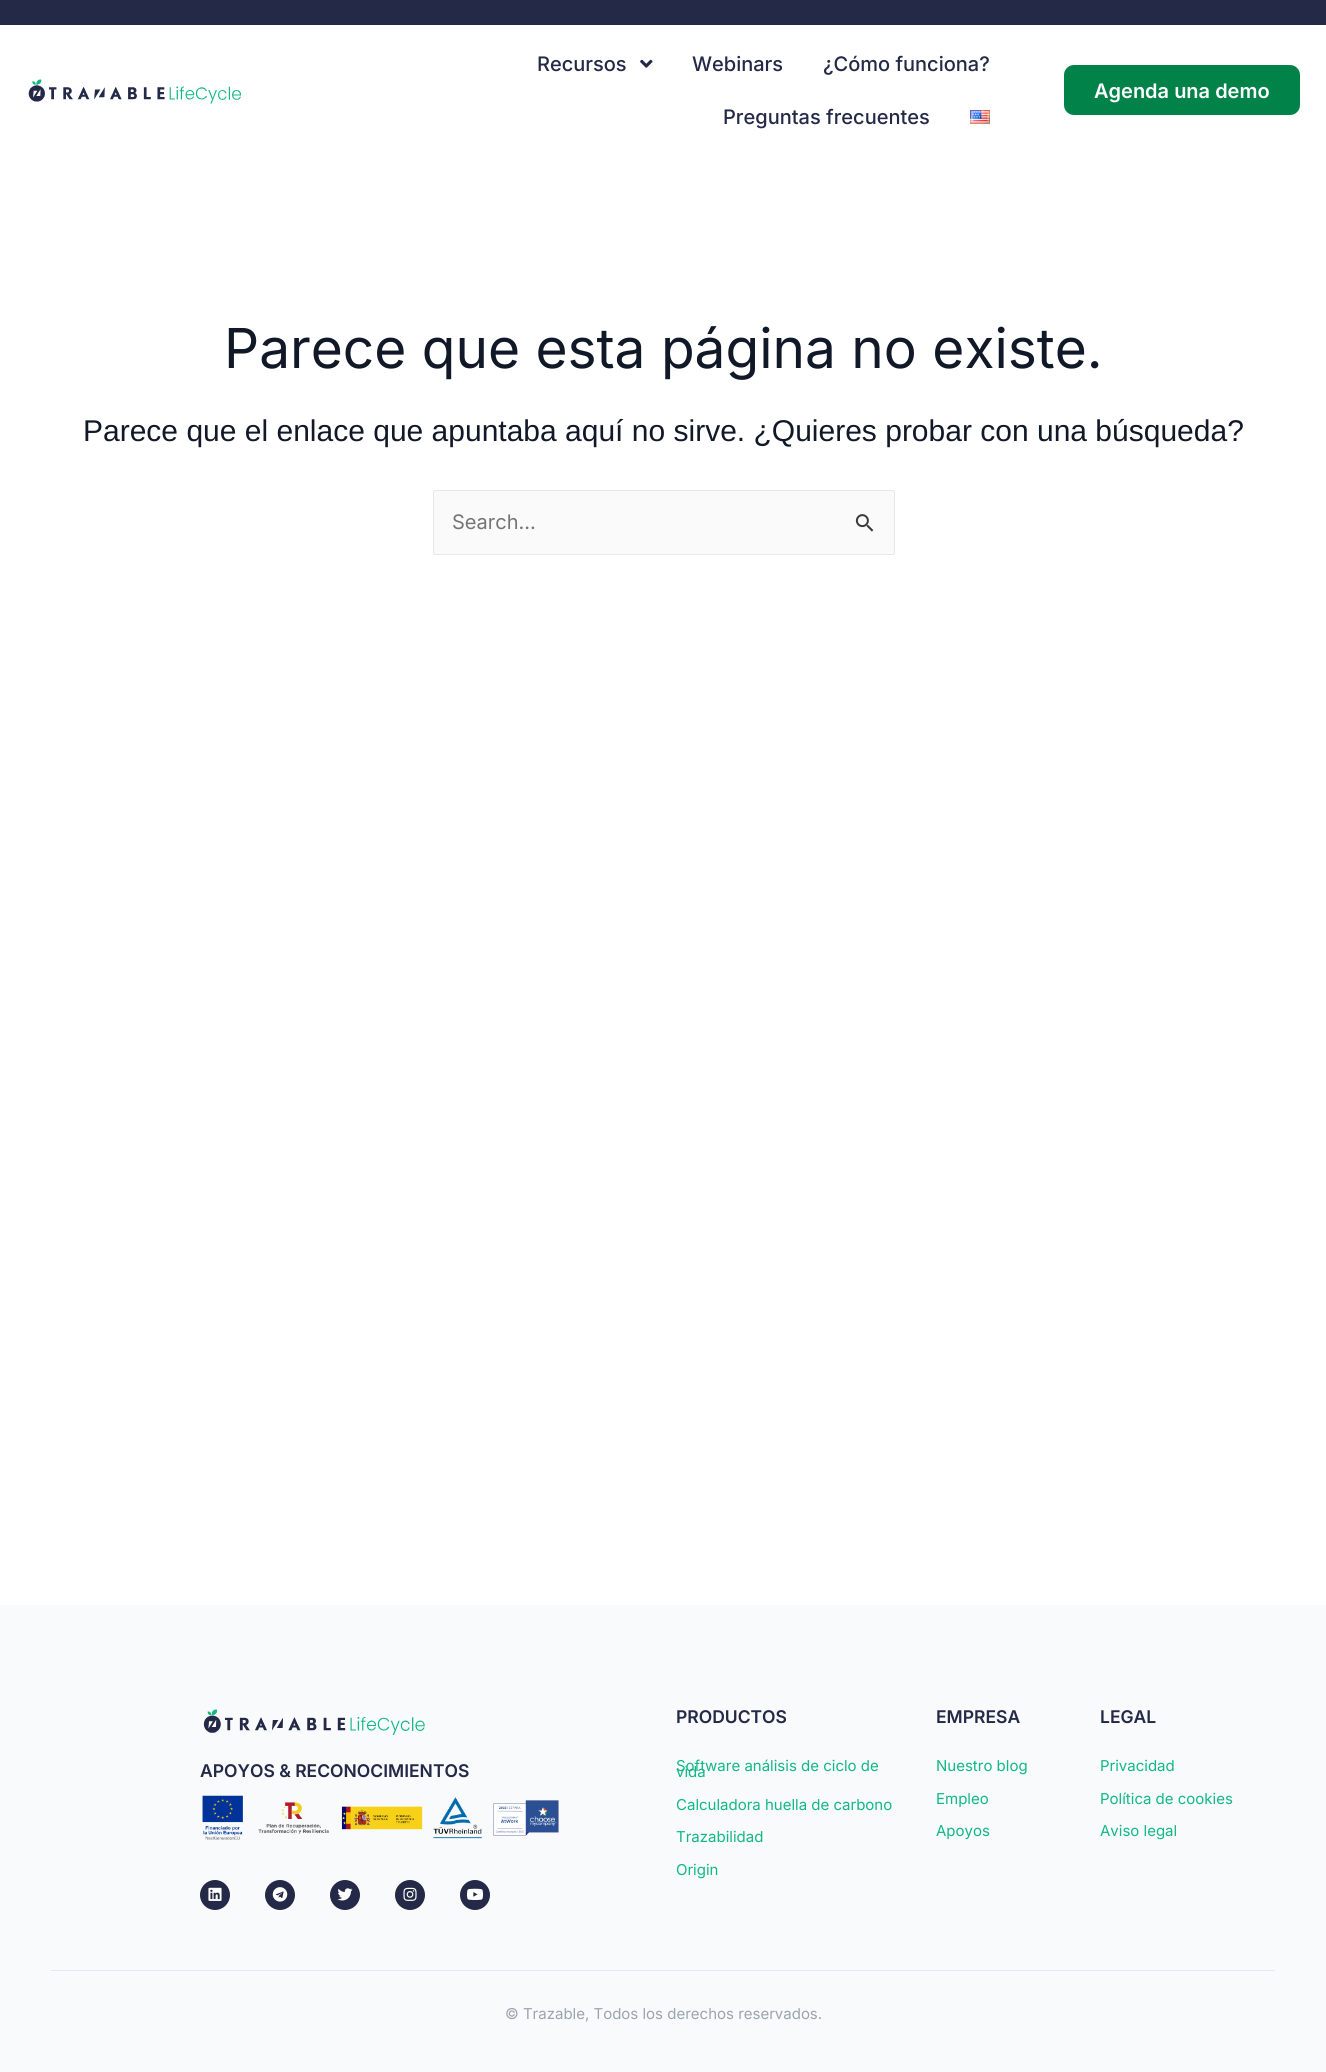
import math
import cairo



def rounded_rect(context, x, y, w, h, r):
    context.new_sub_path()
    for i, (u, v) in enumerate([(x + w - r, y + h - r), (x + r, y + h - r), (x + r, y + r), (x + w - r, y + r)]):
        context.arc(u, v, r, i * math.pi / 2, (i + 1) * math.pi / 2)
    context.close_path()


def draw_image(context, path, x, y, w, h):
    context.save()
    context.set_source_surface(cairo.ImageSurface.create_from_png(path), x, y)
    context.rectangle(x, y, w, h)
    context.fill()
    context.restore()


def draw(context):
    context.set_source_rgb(1, 1, 1)
    context.paint()
    context.set_source_rgb(35 / 255, 41 / 255, 70 / 255)
    context.rectangle(0, 0, 1326, 25)
    context.fill()
    draw_image(context, "images/1.png", 28, 79, 213, 25)
    draw_image(context, "images/2.png", 640, 59, 13, 9)
    draw_image(context, "images/3.png", 970, 110, 20, 14)
    context.set_source_rgb(0, 130 / 255, 72 / 255)
    rounded_rect(context, 1064, 65, 236, 50, 10)
    context.fill()
    context.set_source_rgb(250 / 255, 250 / 255, 250 / 255)
    rounded_rect(context, 433.5, 490.5, 461, 64, 2)
    context.fill_preserve()
    context.set_source_rgb(229 / 255, 231 / 255, 235 / 255)
    context.set_line_width(1)
    context.stroke()
    draw_image(context, "images/4.png", 855, 514, 19, 18)
    context.set_source_rgb(249 / 255, 250 / 255, 251 / 255)
    context.rectangle(0, 1605, 1326, 467)
    context.fill()
    draw_image(context, "images/5.png", 203, 1709, 222, 26)
    draw_image(context, "images/6.png", 202, 1795, 357, 45)
    context.set_source_rgb(35 / 255, 41 / 255, 70 / 255)
    context.arc(215, 1895, 15, 0, 2 * math.pi)
    context.fill()
    draw_image(context, "images/7.png", 208, 1887, 14, 14)
    context.arc(280, 1895, 15, 0, 2 * math.pi)
    context.fill()
    draw_image(context, "images/8.png", 272, 1887, 16, 15)
    context.arc(345, 1895, 15, 0, 2 * math.pi)
    context.fill()
    draw_image(context, "images/9.png", 337, 1888, 16, 13)
    context.arc(410, 1895, 15, 0, 2 * math.pi)
    context.fill()
    draw_image(context, "images/10.png", 403, 1887, 14, 14)
    context.arc(475, 1895, 15, 0, 2 * math.pi)
    context.fill()
    draw_image(context, "images/11.png", 467, 1888, 16, 12)
    context.set_source_rgb(229 / 255, 231 / 255, 235 / 255)
    context.rectangle(51, 1970, 1224, 1)
    context.fill()
    context.select_font_face("Inter Medium")
    context.set_font_size(20)
    context.set_source_rgb(35 / 255, 41 / 255, 70 / 255)
    context.move_to(537, 71)
    context.show_text("Recursos")
    context.move_to(692, 71)
    context.show_text("Webinars")
    context.move_to(823, 71)
    context.show_text("¿Cómo funciona?")
    context.move_to(723, 124)
    context.show_text("Preguntas frecuentes")
    context.select_font_face("Inter SemiBold")
    context.set_source_rgb(1, 1, 1)
    context.move_to(1094, 98)
    context.show_text("Agenda una demo")
    context.select_font_face("Inter")
    context.set_font_size(55)
    context.set_source_rgb(17 / 255, 24 / 255, 39 / 255)
    context.move_to(224, 368)
    context.show_text("Parece que esta página no existe.")
    context.select_font_face("Liberation Sans")
    context.set_font_size(30)
    context.move_to(83, 441)
    context.show_text("Parece que el enlace que apuntaba aquí no sirve. ¿Quieres probar con una búsqueda?")
    context.select_font_face("Inter")
    context.set_font_size(20)
    context.set_source_rgb(117 / 255, 117 / 255, 117 / 255)
    context.move_to(452, 529)
    context.show_text("Search...")
    context.select_font_face("Inter SemiBold")
    context.set_font_size(17.5)
    context.set_source_rgb(35 / 255, 41 / 255, 70 / 255)
    context.move_to(200, 1777)
    context.show_text("APOYOS & RECONOCIMIENTOS")
    context.move_to(676, 1723)
    context.show_text("PRODUCTOS")
    context.select_font_face("Inter")
    context.set_font_size(15)
    context.set_source_rgb(16 / 255, 185 / 255, 129 / 255)
    context.move_to(676, 1771)
    context.show_text("Software análisis de ciclo de")
    context.move_to(676, 1777)
    context.show_text("vida")
    context.move_to(676, 1810)
    context.show_text("Calculadora huella de carbono")
    context.move_to(676, 1842)
    context.show_text("Trazabilidad")
    context.move_to(676, 1875)
    context.show_text("Origin")
    context.select_font_face("Inter SemiBold")
    context.set_font_size(17.5)
    context.set_source_rgb(35 / 255, 41 / 255, 70 / 255)
    context.move_to(936, 1723)
    context.show_text("EMPRESA")
    context.select_font_face("Inter")
    context.set_font_size(15)
    context.set_source_rgb(16 / 255, 185 / 255, 129 / 255)
    context.move_to(936, 1771)
    context.show_text("Nuestro blog")
    context.move_to(936, 1804)
    context.show_text("Empleo")
    context.move_to(936, 1836)
    context.show_text("Apoyos")
    context.select_font_face("Inter SemiBold")
    context.set_font_size(17.5)
    context.set_source_rgb(35 / 255, 41 / 255, 70 / 255)
    context.move_to(1100, 1723)
    context.show_text("LEGAL")
    context.select_font_face("Inter")
    context.set_font_size(15)
    context.set_source_rgb(16 / 255, 185 / 255, 129 / 255)
    context.move_to(1100, 1771)
    context.show_text("Privacidad")
    context.move_to(1100, 1804)
    context.show_text("Política de cookies")
    context.move_to(1100, 1836)
    context.show_text("Aviso legal")
    context.set_source_rgb(156 / 255, 163 / 255, 175 / 255)
    context.move_to(505, 2019)
    context.show_text("© Trazable, Todos los derechos reservados.")


surface = cairo.ImageSurface(cairo.Format.RGB24, 1326, 2072)
context = cairo.Context(surface)
options = cairo.FontOptions()
options.set_hint_metrics(cairo.HintMetrics.OFF)
options.set_hint_style(cairo.HintStyle.NONE)
context.set_font_options(options)
context.set_miter_limit(4)
draw(context)
surface.write_to_png("out.png")
